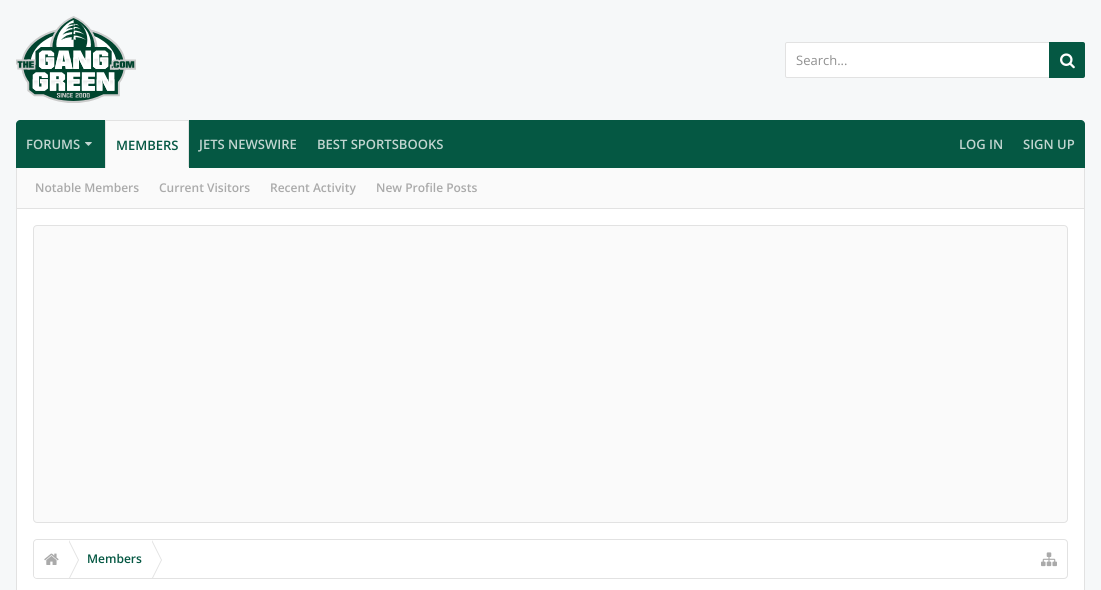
import math
import cairo



def rounded_rect(context, x, y, w, h, r):
    context.new_sub_path()
    for i, (u, v) in enumerate([(x + w - r, y + h - r), (x + r, y + h - r), (x + r, y + r), (x + w - r, y + r)]):
        context.arc(u, v, r, i * math.pi / 2, (i + 1) * math.pi / 2)
    context.close_path()


def draw_image(context, path, x, y, w, h):
    context.save()
    context.set_source_surface(cairo.ImageSurface.create_from_png(path), x, y)
    context.rectangle(x, y, w, h)
    context.fill()
    context.restore()


def draw(context):
    context.set_source_rgb(246 / 255, 248 / 255, 249 / 255)
    context.paint()
    draw_image(context, "images/1.png", 16, 16, 120, 87)
    context.set_source_rgb(1, 1, 1)
    rounded_rect(context, 785.5, 42.5, 299, 35, 1.5)
    context.fill_preserve()
    context.set_source_rgb(226 / 255, 226 / 255, 226 / 255)
    context.set_line_width(1)
    context.stroke()
    context.set_source_rgb(5 / 255, 88 / 255, 67 / 255)
    context.new_path()
    context.move_to(1049, 42)
    context.line_to(1083, 42)
    context.curve_to(1084, 42, 1085, 43, 1085, 44)
    context.line_to(1085, 76)
    context.curve_to(1085, 77, 1084, 78, 1083, 78)
    context.line_to(1049, 78)
    context.close_path()
    context.fill()
    draw_image(context, "images/2.png", 1060, 53, 15, 16)
    context.new_path()
    context.move_to(20, 120)
    context.line_to(1081, 120)
    context.curve_to(1083, 120, 1085, 122, 1085, 124)
    context.line_to(1085, 168)
    context.line_to(16, 168)
    context.line_to(16, 124)
    context.curve_to(16, 122, 18, 120, 20, 120)
    context.close_path()
    context.fill()
    draw_image(context, "images/3.png", 85, 142, 7, 4)
    context.set_source_rgb(250 / 255, 250 / 255, 250 / 255)
    context.rectangle(106, 121, 82, 46)
    context.fill()
    context.set_source_rgb(226 / 255, 226 / 255, 226 / 255)
    context.rectangle(105, 120, 84, 1)
    context.fill()
    context.rectangle(188, 120, 1, 48)
    context.fill()
    context.set_source_rgb(250 / 255, 250 / 255, 250 / 255)
    context.rectangle(105, 167, 84, 1)
    context.fill()
    context.set_source_rgb(226 / 255, 226 / 255, 226 / 255)
    context.rectangle(105, 120, 1, 48)
    context.fill()
    context.set_source_rgb(250 / 255, 250 / 255, 250 / 255)
    context.rectangle(17, 168, 1067, 40)
    context.fill()
    context.set_source_rgb(226 / 255, 226 / 255, 226 / 255)
    context.rectangle(1084, 168, 1, 422)
    context.fill()
    context.rectangle(16, 208, 1069, 1)
    context.fill()
    context.rectangle(16, 168, 1, 41)
    context.fill()
    context.set_source_rgb(1, 1, 1)
    context.rectangle(17, 209, 1067, 381)
    context.fill()
    context.set_source_rgb(226 / 255, 226 / 255, 226 / 255)
    context.rectangle(16, 209, 1, 381)
    context.fill()
    context.set_source_rgb(250 / 255, 250 / 255, 250 / 255)
    rounded_rect(context, 33.5, 225.5, 1034, 297, 3.5)
    context.fill_preserve()
    context.set_source_rgb(226 / 255, 226 / 255, 226 / 255)
    context.stroke()
    rounded_rect(context, 33.5, 539.5, 1034, 39, 3.5)
    context.stroke()
    context.save()
    rounded_rect(context, 34, 540, 1033, 38, 3)
    context.clip()
    context.set_source_rgb(1, 1, 1)
    context.new_path()
    context.move_to(38, 540)
    context.line_to(69, 540)
    context.line_to(69, 579)
    context.line_to(38, 579)
    context.curve_to(36, 579, 34, 577, 34, 575)
    context.line_to(34, 544)
    context.curve_to(34, 542, 36, 540, 38, 540)
    context.close_path()
    context.fill()
    context.restore()
    draw_image(context, "images/4.png", 44, 553, 15, 12)
    context.new_path()
    context.move_to(70, 578)
    context.line_to(69, 578)
    context.line_to(69, 540)
    context.line_to(79, 560)
    context.close_path()
    context.fill()
    context.set_source_rgb(1, 1, 1)
    context.new_path()
    context.move_to(69, 578)
    context.line_to(68, 578)
    context.line_to(68, 540)
    context.line_to(78, 560)
    context.close_path()
    context.fill()
    context.set_source_rgb(226 / 255, 226 / 255, 226 / 255)
    context.new_path()
    context.move_to(153, 578)
    context.line_to(152, 578)
    context.line_to(152, 540)
    context.line_to(162, 560)
    context.close_path()
    context.fill()
    context.set_source_rgb(1, 1, 1)
    context.new_path()
    context.move_to(152, 578)
    context.line_to(151, 578)
    context.line_to(151, 540)
    context.line_to(161, 560)
    context.close_path()
    context.fill()
    draw_image(context, "images/5.png", 1041, 552, 16, 15)
    context.select_font_face("Open Sans")
    context.set_font_size(13)
    context.set_source_rgb(144 / 255, 144 / 255, 144 / 255)
    context.move_to(796, 65)
    context.show_text("Search...")
    context.select_font_face("Open Sans SemiBold")
    context.set_source_rgb(193 / 255, 213 / 255, 208 / 255)
    context.move_to(26, 149)
    context.show_text("FORUMS")
    context.move_to(199, 149)
    context.show_text("JETS NEWSWIRE")
    context.move_to(317, 149)
    context.show_text("BEST SPORTSBOOKS")
    context.set_source_rgb(5 / 255, 88 / 255, 67 / 255)
    context.move_to(116, 150)
    context.show_text("MEMBERS")
    context.set_font_size(12)
    context.set_source_rgb(170 / 255, 170 / 255, 170 / 255)
    context.move_to(35, 192)
    context.show_text("Notable Members")
    context.move_to(159, 192)
    context.show_text("Current Visitors")
    context.move_to(270, 192)
    context.show_text("Recent Activity")
    context.move_to(376, 192)
    context.show_text("New Profile Posts")
    context.set_font_size(13)
    context.set_source_rgb(193 / 255, 213 / 255, 208 / 255)
    context.move_to(959, 149)
    context.show_text("LOG IN")
    context.move_to(1023, 149)
    context.show_text("SIGN UP")
    context.set_font_size(12)
    context.set_source_rgb(5 / 255, 88 / 255, 67 / 255)
    context.move_to(87, 563)
    context.show_text("Members")


surface = cairo.ImageSurface(cairo.Format.RGB24, 1101, 590)
context = cairo.Context(surface)
options = cairo.FontOptions()
options.set_hint_metrics(cairo.HintMetrics.OFF)
options.set_hint_style(cairo.HintStyle.NONE)
context.set_font_options(options)
context.set_miter_limit(4)
draw(context)
surface.write_to_png("out.png")
